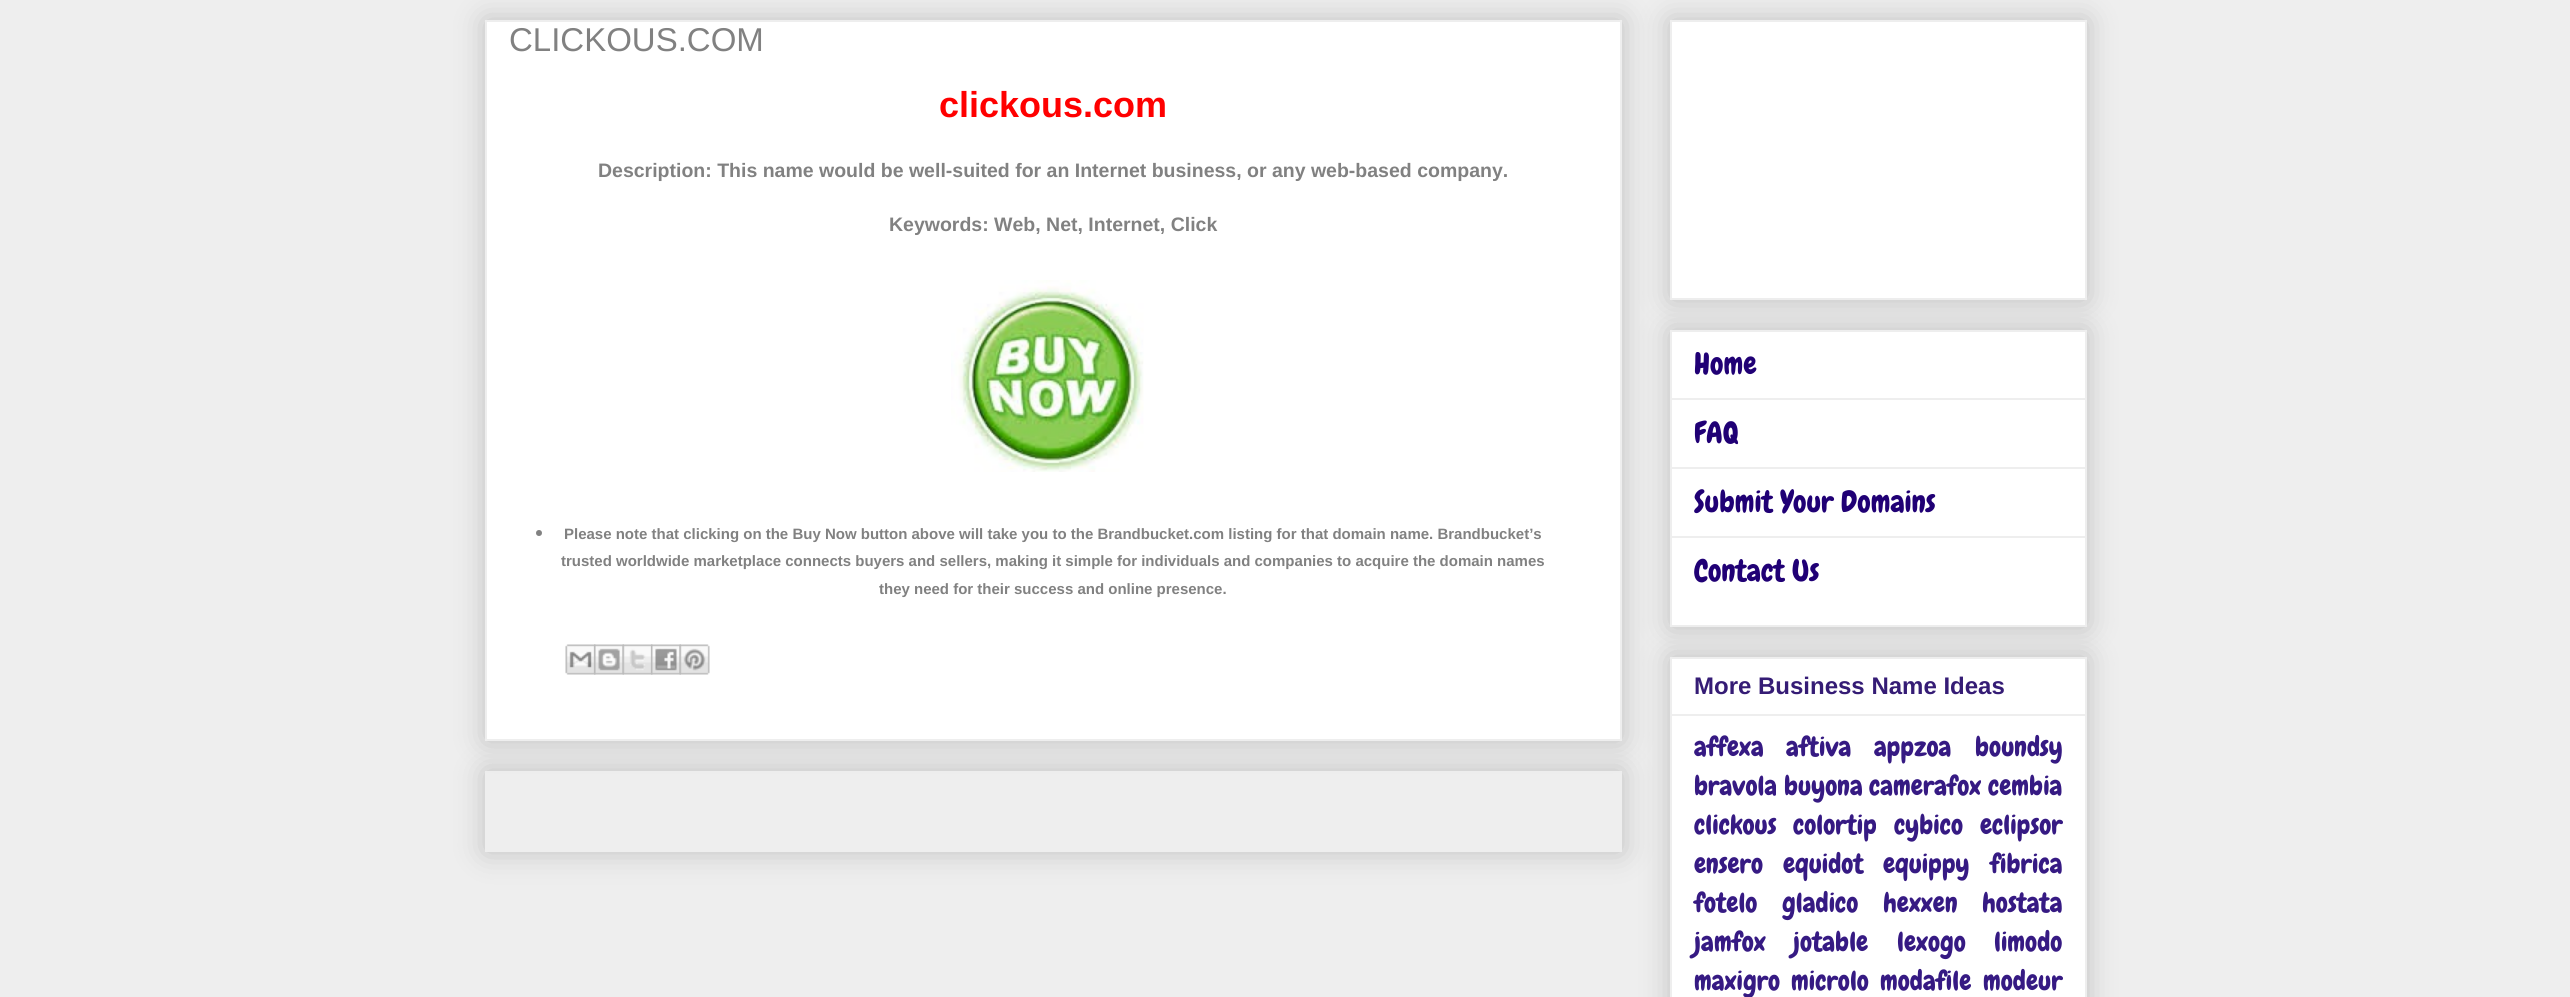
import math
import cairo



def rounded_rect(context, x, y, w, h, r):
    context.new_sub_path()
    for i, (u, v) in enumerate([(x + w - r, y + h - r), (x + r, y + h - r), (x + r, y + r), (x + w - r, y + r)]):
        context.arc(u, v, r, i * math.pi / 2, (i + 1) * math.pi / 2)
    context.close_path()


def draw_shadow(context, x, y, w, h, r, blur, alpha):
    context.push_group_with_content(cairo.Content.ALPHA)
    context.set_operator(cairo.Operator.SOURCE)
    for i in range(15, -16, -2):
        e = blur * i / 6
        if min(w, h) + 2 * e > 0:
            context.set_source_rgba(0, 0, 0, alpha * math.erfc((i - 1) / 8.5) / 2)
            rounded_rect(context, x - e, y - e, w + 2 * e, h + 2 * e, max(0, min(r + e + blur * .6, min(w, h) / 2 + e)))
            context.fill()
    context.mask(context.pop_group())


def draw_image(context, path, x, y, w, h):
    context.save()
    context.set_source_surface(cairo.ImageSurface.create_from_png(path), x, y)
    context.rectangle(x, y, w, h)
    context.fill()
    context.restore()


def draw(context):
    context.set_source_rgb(238 / 255, 238 / 255, 238 / 255)
    context.paint()
    context.set_source_rgb(0, 0, 0)
    draw_shadow(context, 485, 771, 1137, 81, 0, 15, 0.2)
    context.set_source_rgb(238 / 255, 238 / 255, 238 / 255)
    context.rectangle(485, 771, 1137, 81)
    context.fill()
    context.set_source_rgb(0, 0, 0)
    draw_shadow(context, 485, 20, 1137, 721, 0, 15, 0.2)
    context.set_source_rgb(1, 1, 1)
    context.rectangle(486, 21, 1135, 719)
    context.fill_preserve()
    context.set_source_rgb(238 / 255, 238 / 255, 238 / 255)
    context.stroke()
    draw_image(context, "images/1.png", 951, 280, 193, 192)
    context.set_source_rgb(129 / 255, 129 / 255, 129 / 255)
    context.arc(539, 533, 3, 0, 2 * math.pi)
    context.fill()
    draw_image(context, "images/2.png", 565, 644, 31, 31)
    draw_image(context, "images/3.png", 594, 644, 30, 31)
    draw_image(context, "images/4.png", 622, 644, 31, 31)
    draw_image(context, "images/5.png", 651, 644, 30, 31)
    draw_image(context, "images/6.png", 679, 644, 31, 31)
    context.set_source_rgb(0, 0, 0)
    draw_shadow(context, 1670, 20, 417, 280, 0, 15, 0.2)
    context.set_source_rgb(1, 1, 1)
    context.rectangle(1671, 21, 415, 278)
    context.fill_preserve()
    context.set_source_rgb(238 / 255, 238 / 255, 238 / 255)
    context.stroke()
    context.set_source_rgb(0, 0, 0)
    draw_shadow(context, 1670, 330, 417, 297, 0, 15, 0.2)
    context.set_source_rgb(1, 1, 1)
    context.rectangle(1671, 331, 415, 295)
    context.fill_preserve()
    context.set_source_rgb(238 / 255, 238 / 255, 238 / 255)
    context.stroke()
    context.rectangle(1671, 398, 414, 2)
    context.fill()
    context.rectangle(1671, 467, 414, 2)
    context.fill()
    context.rectangle(1671, 536, 414, 2)
    context.fill()
    context.set_source_rgb(0, 0, 0)
    draw_shadow(context, 1670, 657, 417, 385, 0, 15, 0.2)
    context.set_source_rgb(1, 1, 1)
    context.rectangle(1671, 658, 415, 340)
    context.fill_preserve()
    context.set_source_rgb(238 / 255, 238 / 255, 238 / 255)
    context.stroke()
    context.rectangle(1671, 714, 414, 2)
    context.fill()
    context.select_font_face("Liberation Sans")
    context.set_font_size(33)
    context.set_source_rgb(129 / 255, 129 / 255, 129 / 255)
    context.move_to(509, 51)
    context.show_text("CLICKOUS.COM")
    context.select_font_face("Liberation Sans", cairo.FontSlant.NORMAL, cairo.FontWeight.BOLD)
    context.set_font_size(36)
    context.set_source_rgb(1, 0, 0)
    context.move_to(939, 117)
    context.show_text("clickous.com")
    context.set_font_size(19.5)
    context.set_source_rgb(129 / 255, 129 / 255, 129 / 255)
    context.move_to(598, 177)
    context.show_text("Description: This name would be well-suited for an Internet business, or any web-based company.")
    context.move_to(889, 231)
    context.show_text("Keywords: Web, Net, Internet, Click")
    context.set_font_size(15)
    context.move_to(564, 539)
    context.show_text("Please note that clicking on the Buy Now button above will take you to the Brandbucket.com listing for that domain name. Brandbucket’s")
    context.move_to(561, 566)
    context.show_text("trusted worldwide marketplace connects buyers and sellers, making it simple for individuals and companies to acquire the domain names")
    context.move_to(879, 594)
    context.show_text("they need for their success and online presence.")
    context.select_font_face("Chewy")
    context.set_font_size(30)
    context.set_source_rgb(32 / 255, 0, 117 / 255)
    context.move_to(1694, 374)
    context.show_text("Home")
    context.move_to(1694, 443)
    context.show_text("FAQ")
    context.move_to(1694, 512)
    context.show_text("Submit Your Domains")
    context.move_to(1694, 581)
    context.show_text("Contact Us")
    context.select_font_face("Liberation Sans", cairo.FontSlant.NORMAL, cairo.FontWeight.BOLD)
    context.set_font_size(24)
    context.set_source_rgb(53 / 255, 28 / 255, 117 / 255)
    context.move_to(1694, 694)
    context.show_text("More Business Name Ideas")
    context.select_font_face("Chewy")
    context.set_font_size(27)
    context.set_source_rgb(54 / 255, 26 / 255, 131 / 255)
    context.move_to(1694, 756)
    context.show_text("affexa")
    context.move_to(1786, 756)
    context.show_text("aftiva")
    context.move_to(1874, 756)
    context.show_text("appzoa")
    context.move_to(1975, 756)
    context.show_text("boundsy")
    context.move_to(1694, 795)
    context.show_text("bravola")
    context.move_to(1784, 795)
    context.show_text("buyona")
    context.move_to(1869, 795)
    context.show_text("camerafox")
    context.move_to(1988, 795)
    context.show_text("cembia")
    context.move_to(1694, 834)
    context.show_text("clickous")
    context.move_to(1793, 834)
    context.show_text("colortip")
    context.move_to(1894, 834)
    context.show_text("cybico")
    context.move_to(1980, 834)
    context.show_text("eclipsor")
    context.move_to(1694, 873)
    context.show_text("ensero")
    context.move_to(1783, 873)
    context.show_text("equidot")
    context.move_to(1883, 873)
    context.show_text("equippy")
    context.move_to(1990, 873)
    context.show_text("fibrica")
    context.move_to(1694, 912)
    context.show_text("fotelo")
    context.move_to(1782, 912)
    context.show_text("gladico")
    context.move_to(1883, 912)
    context.show_text("hexxen")
    context.move_to(1982, 912)
    context.show_text("hostata")
    context.move_to(1694, 951)
    context.show_text("jamfox")
    context.move_to(1793, 951)
    context.show_text("jotable")
    context.move_to(1897, 951)
    context.show_text("lexogo")
    context.move_to(1994, 951)
    context.show_text("limodo")
    context.move_to(1694, 990)
    context.show_text("maxigro")
    context.move_to(1791, 990)
    context.show_text("microlo")
    context.move_to(1880, 990)
    context.show_text("modafile")
    context.move_to(1983, 990)
    context.show_text("modeur")


surface = cairo.ImageSurface(cairo.Format.RGB24, 2570, 997)
context = cairo.Context(surface)
options = cairo.FontOptions()
options.set_hint_metrics(cairo.HintMetrics.OFF)
options.set_hint_style(cairo.HintStyle.NONE)
context.set_font_options(options)
context.set_miter_limit(4)
draw(context)
surface.write_to_png("out.png")
